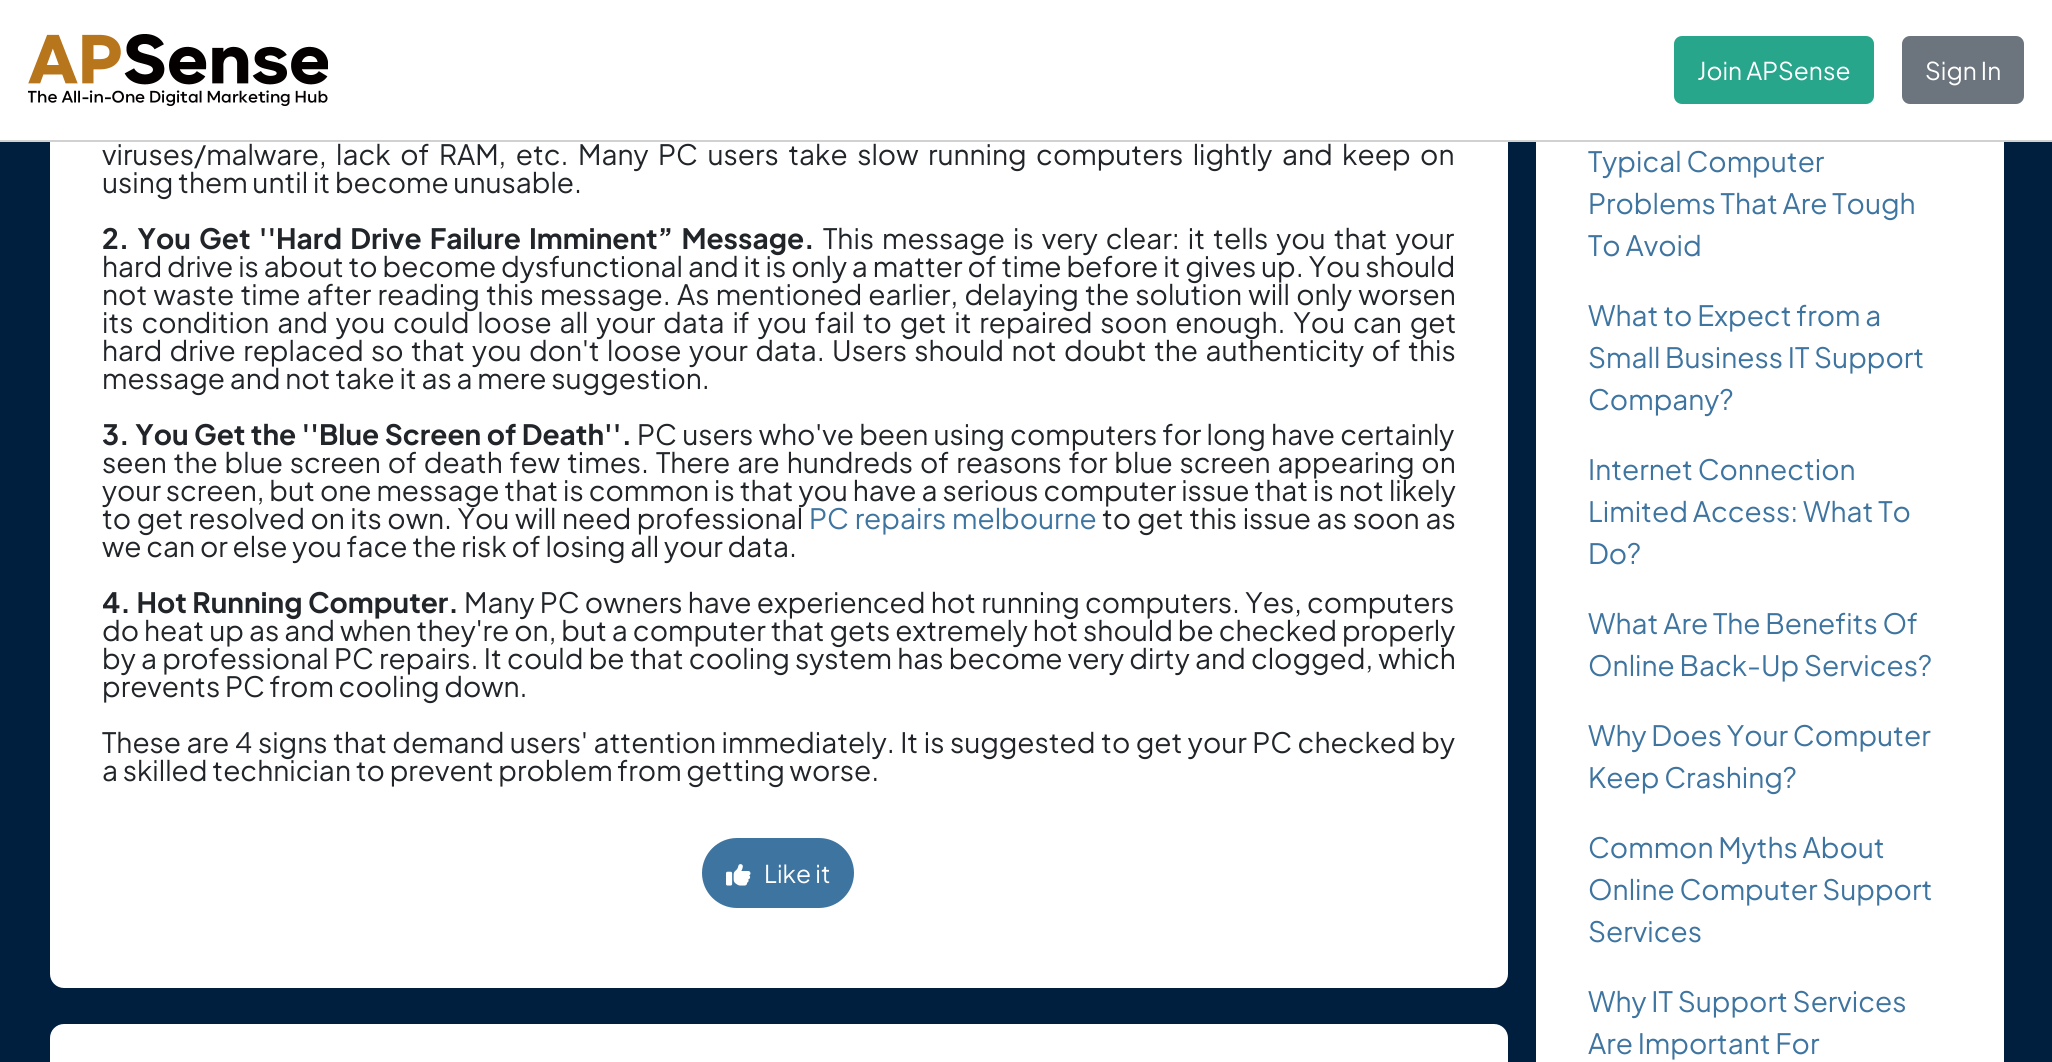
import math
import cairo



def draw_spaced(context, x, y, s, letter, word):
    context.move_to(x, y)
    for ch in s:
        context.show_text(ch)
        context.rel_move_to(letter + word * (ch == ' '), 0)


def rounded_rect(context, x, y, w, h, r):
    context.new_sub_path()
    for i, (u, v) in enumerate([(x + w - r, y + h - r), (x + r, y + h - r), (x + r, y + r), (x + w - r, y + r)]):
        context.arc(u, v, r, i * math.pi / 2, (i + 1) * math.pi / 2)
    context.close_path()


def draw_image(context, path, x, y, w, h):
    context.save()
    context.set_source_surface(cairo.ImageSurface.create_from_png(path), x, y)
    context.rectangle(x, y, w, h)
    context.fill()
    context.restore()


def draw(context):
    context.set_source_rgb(0, 31 / 255, 63 / 255)
    context.paint()
    context.set_source_rgb(1, 1, 1)
    rounded_rect(context, 50, -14, 1458, 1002, 14)
    context.fill()
    context.rectangle(0, 0, 2052, 140)
    context.fill()
    context.set_source_rgb(209 / 255, 209 / 255, 209 / 255)
    context.rectangle(0, 140, 2052, 2)
    context.fill()
    draw_image(context, "images/1.png", 28, 34, 300, 72)
    context.set_source_rgb(39 / 255, 166 / 255, 140 / 255)
    rounded_rect(context, 1675, 37, 198, 66, 7)
    context.fill_preserve()
    context.stroke()
    context.set_source_rgb(108 / 255, 117 / 255, 125 / 255)
    rounded_rect(context, 1903, 37, 120, 66, 7)
    context.fill_preserve()
    context.stroke()
    context.set_source_rgb(62 / 255, 116 / 255, 160 / 255)
    rounded_rect(context, 703, 839, 150, 68, 34)
    context.fill_preserve()
    context.stroke()
    draw_image(context, "images/2.png", 726, 864, 25, 22)
    context.set_source_rgb(1, 1, 1)
    rounded_rect(context, 50, 1024, 1458, 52, 14)
    context.fill()
    context.rectangle(1536, 142, 468, 920)
    context.fill()
    context.select_font_face("Plus Jakarta Sans")
    context.set_font_size(24.5)
    context.move_to(1697, 80)
    context.show_text("Join APSense")
    context.move_to(1925, 80)
    context.show_text("Sign In")
    context.set_font_size(28)
    context.set_source_rgb(33 / 255, 37 / 255, 41 / 255)
    draw_spaced(context, 102, 165, "viruses/malware, lack of RAM, etc. Many PC users take slow running computers lightly and keep on", 0, 4.75)
    context.move_to(102, 193)
    context.show_text("using them until it become unusable.")
    context.select_font_face("Plus Jakarta Sans", cairo.FontSlant.NORMAL, cairo.FontWeight.BOLD)
    draw_spaced(context, 102, 249, "2. You Get ''Hard Drive Failure Imminent” Message.", 0, 3.25)
    context.select_font_face("Plus Jakarta Sans")
    draw_spaced(context, 823, 249, "This message is very clear: it tells you that your", 0, 3.25)
    draw_spaced(context, 102, 277, "hard drive is about to become dysfunctional and it is only a matter of time before it gives up. You should", 0, 0.1)
    draw_spaced(context, 102, 305, "not waste time after reading this message. As mentioned earlier, delaying the solution will only worsen", 0, 1.5)
    draw_spaced(context, 102, 333, "its condition and you could loose all your data if you fail to get it repaired soon enough. You can get", 0, 3.1)
    draw_spaced(context, 102, 361, "hard drive replaced so that you don't loose your data. Users should not doubt the authenticity of this", 0, 2.6)
    context.move_to(102, 389)
    context.show_text("message and not take it as a mere suggestion.")
    context.select_font_face("Plus Jakarta Sans", cairo.FontSlant.NORMAL, cairo.FontWeight.BOLD)
    draw_spaced(context, 102, 445, "3. You Get the ''Blue Screen of Death''.", 0, 0.5)
    context.select_font_face("Plus Jakarta Sans")
    draw_spaced(context, 637, 445, "PC users who've been using computers for long have certainly", 0, 0.5)
    draw_spaced(context, 102, 473, "seen the blue screen of death few times. There are hundreds of reasons for blue screen appearing on", 0, 2.1)
    draw_spaced(context, 102, 501, "your screen, but one message that is common is that you have a serious computer issue that is not likely", 0, 0.2)
    draw_spaced(context, 102, 529, "to get resolved on its own. You will need professional", 0, 0.75)
    context.set_source_rgb(62 / 255, 116 / 255, 160 / 255)
    draw_spaced(context, 809, 529, "PC repairs", 0, 1)
    context.move_to(952, 529)
    context.show_text("melbourne")
    context.set_source_rgb(33 / 255, 37 / 255, 41 / 255)
    draw_spaced(context, 1102, 529, "to get this issue as soon as", 0, 1)
    context.move_to(102, 557)
    context.show_text("we can or else you face the risk of losing all your data.")
    context.select_font_face("Plus Jakarta Sans", cairo.FontSlant.NORMAL, cairo.FontWeight.BOLD)
    draw_spaced(context, 102, 613, "4. Hot Running Computer.", 0, 0.5)
    context.select_font_face("Plus Jakarta Sans")
    draw_spaced(context, 464, 613, "Many PC owners have experienced hot running computers. Yes, computers", 0, 0.5)
    draw_spaced(context, 102, 641, "do heat up as and when they're on, but a computer that gets extremely hot should be checked properly", 0, 0.25)
    draw_spaced(context, 102, 669, "by a professional PC repairs. It could be that cooling system has become very dirty and clogged, which", 0, 0.5)
    context.move_to(102, 697)
    context.show_text("prevents PC from cooling down.")
    draw_spaced(context, 102, 753, "These are 4 signs that demand users' attention immediately. It is suggested to get your PC checked by", 0, 0.75)
    context.move_to(102, 781)
    context.show_text("a skilled technician to prevent problem from getting worse.")
    context.set_font_size(24.5)
    context.set_source_rgb(1, 1, 1)
    context.move_to(764, 883)
    context.show_text("Like it")
    context.set_font_size(28)
    context.set_source_rgb(62 / 255, 116 / 255, 160 / 255)
    context.move_to(1588, 172)
    context.show_text("Typical Computer")
    context.move_to(1588, 214)
    context.show_text("Problems That Are Tough")
    context.move_to(1588, 256)
    context.show_text("To Avoid")
    context.move_to(1588, 326)
    context.show_text("What to Expect from a")
    context.move_to(1588, 368)
    context.show_text("Small Business IT Support")
    context.move_to(1588, 410)
    context.show_text("Company?")
    context.move_to(1588, 480)
    context.show_text("Internet Connection")
    context.move_to(1588, 522)
    context.show_text("Limited Access: What To")
    context.move_to(1588, 564)
    context.show_text("Do?")
    context.move_to(1588, 634)
    context.show_text("What Are The Benefits Of")
    context.move_to(1588, 676)
    context.show_text("Online Back-Up Services?")
    context.move_to(1588, 746)
    context.show_text("Why Does Your Computer")
    context.move_to(1588, 788)
    context.show_text("Keep Crashing?")
    context.move_to(1588, 858)
    context.show_text("Common Myths About")
    context.move_to(1588, 900)
    context.show_text("Online Computer Support")
    context.move_to(1588, 942)
    context.show_text("Services")
    context.move_to(1588, 1012)
    context.show_text("Why IT Support Services")
    context.move_to(1588, 1054)
    context.show_text("Are Important For")


surface = cairo.ImageSurface(cairo.Format.RGB24, 2052, 1062)
context = cairo.Context(surface)
options = cairo.FontOptions()
options.set_hint_metrics(cairo.HintMetrics.OFF)
options.set_hint_style(cairo.HintStyle.NONE)
context.set_font_options(options)
context.set_miter_limit(4)
draw(context)
surface.write_to_png("out.png")
